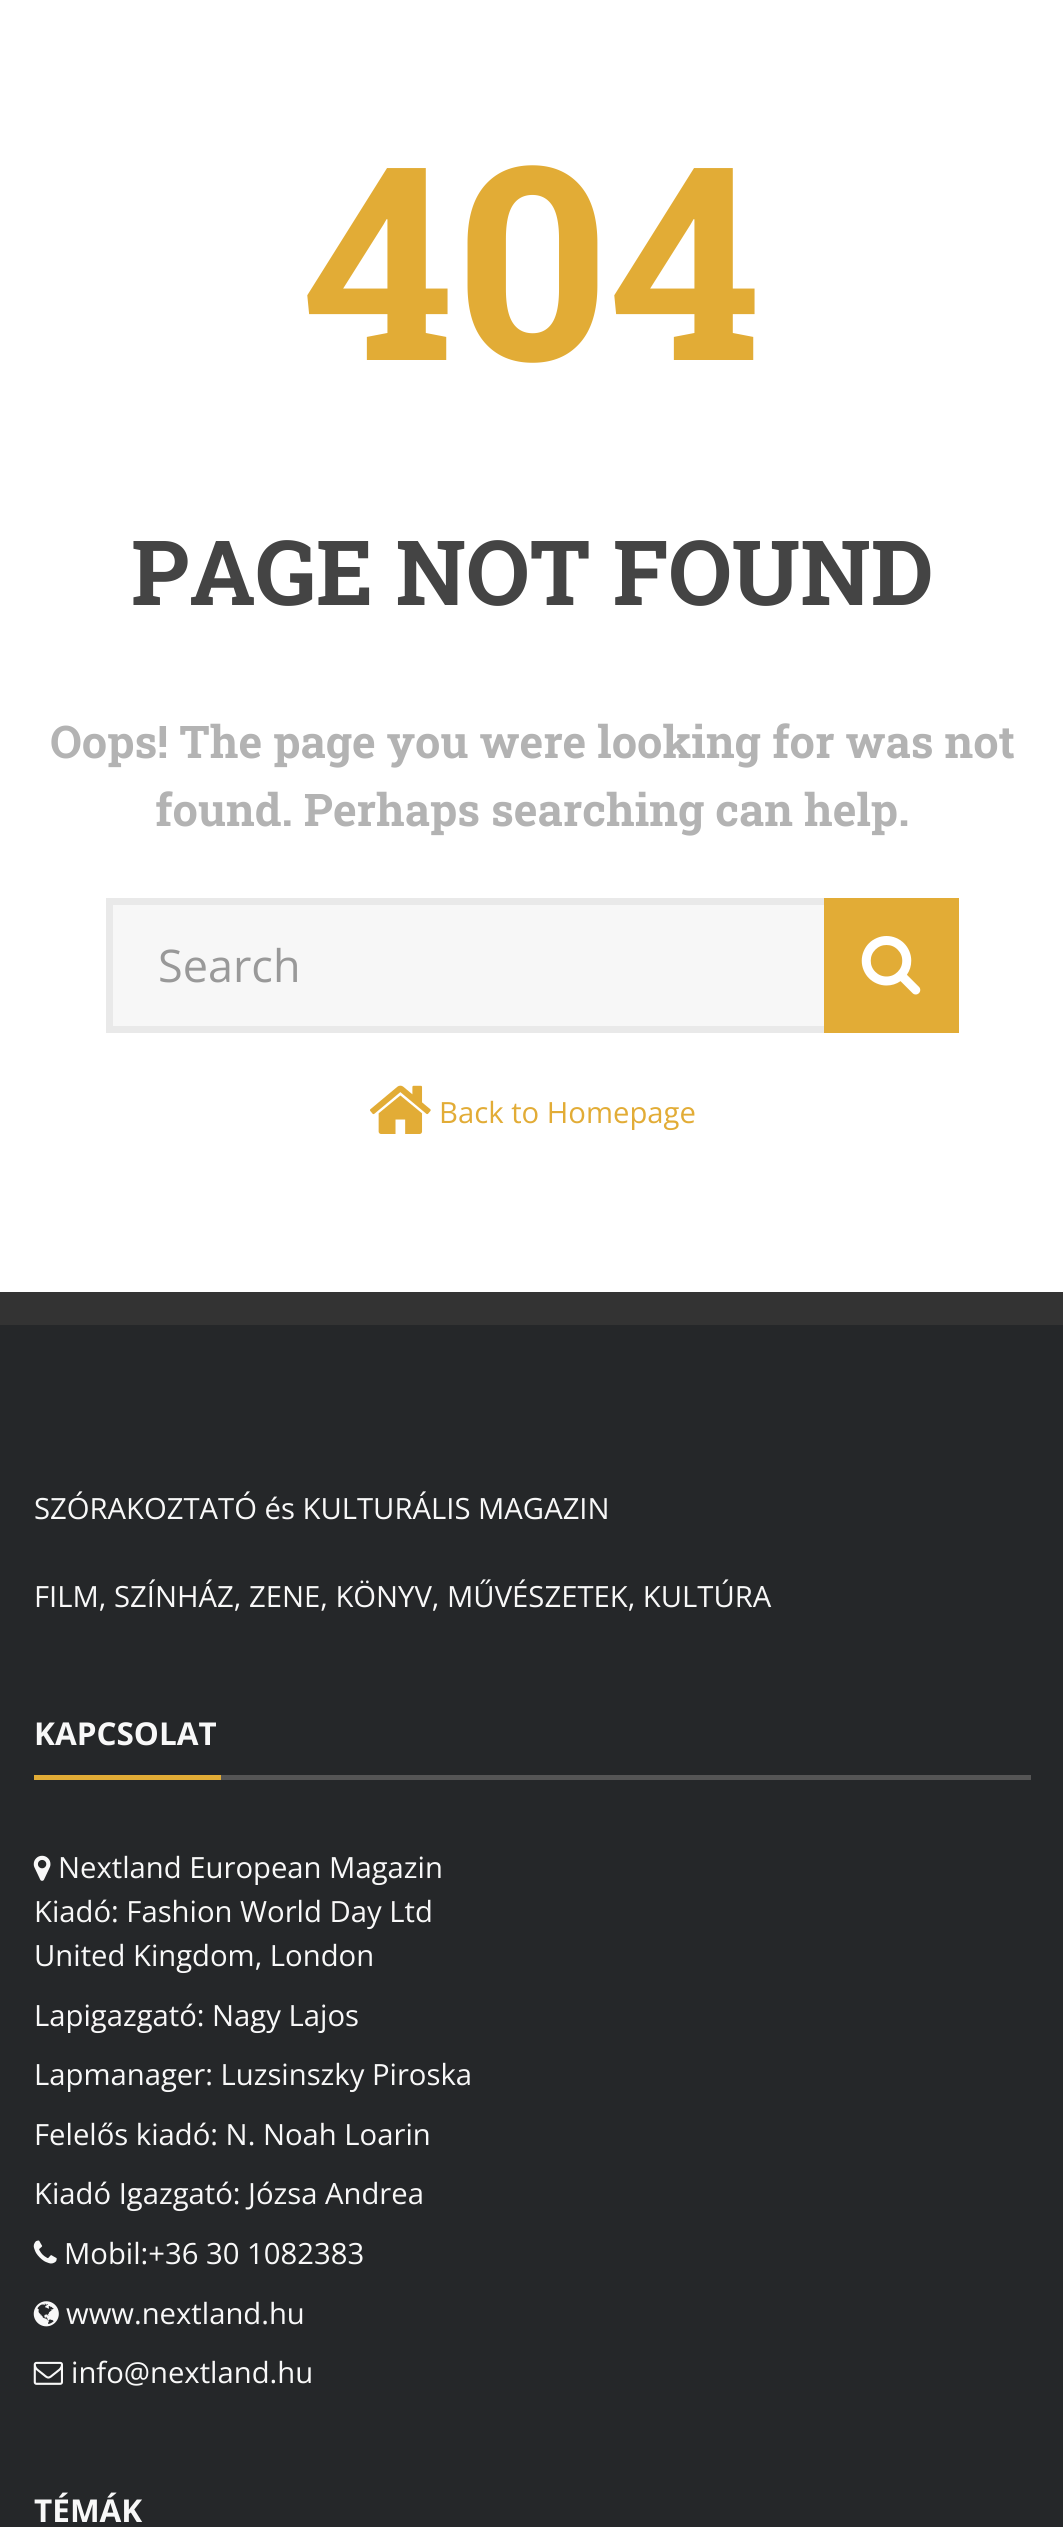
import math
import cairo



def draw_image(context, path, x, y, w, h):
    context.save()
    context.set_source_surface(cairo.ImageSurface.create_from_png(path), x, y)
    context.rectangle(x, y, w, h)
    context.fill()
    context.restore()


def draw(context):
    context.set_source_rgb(1, 1, 1)
    context.paint()
    context.set_source_rgb(247 / 255, 247 / 255, 247 / 255)
    context.rectangle(113, 905, 711, 121)
    context.fill()
    context.rectangle(109.5, 901.5, 846, 128)
    context.set_source_rgb(233 / 255, 233 / 255, 233 / 255)
    context.set_line_width(7)
    context.stroke()
    context.set_source_rgb(226 / 255, 172 / 255, 54 / 255)
    context.rectangle(824, 898, 135, 135)
    context.fill()
    draw_image(context, "images/1.png", 861, 936, 60, 59)
    draw_image(context, "images/2.png", 370, 1085, 61, 49)
    context.set_source_rgb(37 / 255, 39 / 255, 41 / 255)
    context.rectangle(0, 1325, 1063, 1202)
    context.fill()
    context.set_source_rgb(51 / 255, 51 / 255, 51 / 255)
    context.rectangle(0, 1292, 1063, 33)
    context.fill()
    context.set_source_rgb(226 / 255, 172 / 255, 54 / 255)
    context.rectangle(34, 1775, 187, 5)
    context.fill()
    context.set_source_rgb(85 / 255, 85 / 255, 85 / 255)
    context.rectangle(221, 1775, 810, 5)
    context.fill()
    draw_image(context, "images/3.png", 33, 1855, 18, 26)
    draw_image(context, "images/4.png", 33, 2240, 24, 24)
    draw_image(context, "images/5.png", 33, 2301, 26, 26)
    draw_image(context, "images/6.png", 33, 2361, 30, 24)
    context.select_font_face("Roboto Slab", cairo.FontSlant.NORMAL, cairo.FontWeight.BOLD)
    context.set_font_size(270)
    context.set_source_rgb(226 / 255, 172 / 255, 54 / 255)
    context.move_to(302, 360)
    context.show_text("404")
    context.set_font_size(90)
    context.set_source_rgb(68 / 255, 68 / 255, 68 / 255)
    context.move_to(131, 605)
    context.show_text("PAGE NOT FOUND")
    context.set_font_size(45)
    context.set_source_rgb(179 / 255, 179 / 255, 179 / 255)
    context.move_to(50, 758)
    context.show_text("Oops! The page you were looking for was not")
    context.move_to(155, 826)
    context.show_text("found. Perhaps searching can help.")
    context.select_font_face("Open Sans")
    context.set_source_rgb(153 / 255, 153 / 255, 153 / 255)
    context.move_to(158, 982)
    context.show_text("Search")
    context.set_font_size(29.25)
    context.set_source_rgb(226 / 255, 172 / 255, 54 / 255)
    context.move_to(439, 1123)
    context.show_text("Back to Homepage")
    context.set_source_rgb(248 / 255, 248 / 255, 248 / 255)
    context.move_to(34, 1519)
    context.show_text("SZÓRAKOZTATÓ és KULTURÁLIS MAGAZIN")
    context.move_to(34, 1607)
    context.show_text("FILM, SZÍNHÁZ, ZENE, KÖNYV, MŰVÉSZETEK, KULTÚRA")
    context.select_font_face("Open Sans", cairo.FontSlant.NORMAL, cairo.FontWeight.BOLD)
    context.set_font_size(31.5)
    context.move_to(34, 1745)
    context.show_text("KAPCSOLAT")
    context.select_font_face("Open Sans")
    context.set_font_size(29.25)
    context.move_to(58, 1878)
    context.show_text("Nextland European Magazin")
    context.move_to(34, 1922)
    context.show_text("Kiadó: Fashion World Day Ltd")
    context.move_to(34, 1966)
    context.show_text("United Kingdom, London")
    context.move_to(34, 2026)
    context.show_text("Lapigazgató: Nagy Lajos")
    context.move_to(34, 2085)
    context.show_text("Lapmanager: Luzsinszky Piroska")
    context.move_to(34, 2145)
    context.show_text("Felelős kiadó: N. Noah Loarin")
    context.move_to(34, 2204)
    context.show_text("Kiadó Igazgató: Józsa Andrea")
    context.move_to(64, 2264)
    context.show_text("Mobil:+36 30 1082383")
    context.move_to(66, 2324)
    context.show_text("www.nextland.hu")
    context.move_to(71, 2383)
    context.show_text("info@nextland.hu")
    context.select_font_face("Open Sans", cairo.FontSlant.NORMAL, cairo.FontWeight.BOLD)
    context.set_font_size(31.5)
    context.move_to(34, 2522)
    context.show_text("TÉMÁK")


surface = cairo.ImageSurface(cairo.Format.RGB24, 1063, 2527)
context = cairo.Context(surface)
options = cairo.FontOptions()
options.set_hint_metrics(cairo.HintMetrics.OFF)
options.set_hint_style(cairo.HintStyle.NONE)
context.set_font_options(options)
context.set_miter_limit(4)
draw(context)
surface.write_to_png("out.png")
